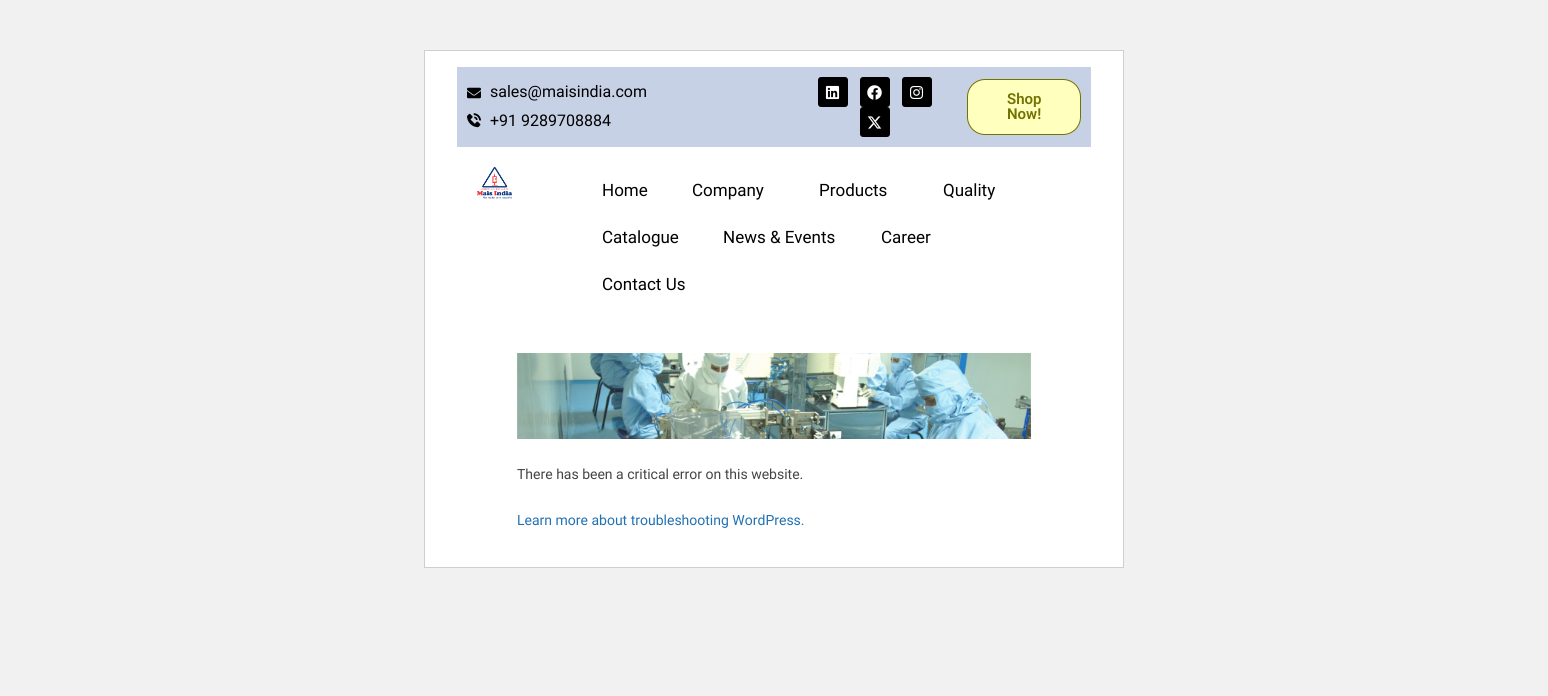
import math
import cairo



def rounded_rect(context, x, y, w, h, r):
    context.new_sub_path()
    for i, (u, v) in enumerate([(x + w - r, y + h - r), (x + r, y + h - r), (x + r, y + r), (x + w - r, y + r)]):
        context.arc(u, v, r, i * math.pi / 2, (i + 1) * math.pi / 2)
    context.close_path()


def draw_image(context, path, x, y, w, h):
    context.save()
    context.set_source_surface(cairo.ImageSurface.create_from_png(path), x, y)
    context.rectangle(x, y, w, h)
    context.fill()
    context.restore()


def draw(context):
    context.set_source_rgb(241 / 255, 241 / 255, 241 / 255)
    context.paint()
    context.set_source_rgb(1, 1, 1)
    context.rectangle(424.5, 50.5, 699, 517)
    context.fill_preserve()
    context.set_source_rgb(204 / 255, 208 / 255, 212 / 255)
    context.set_line_width(1)
    context.stroke()
    context.set_source_rgb(199 / 255, 209 / 255, 229 / 255)
    context.rectangle(457, 67, 634, 80)
    context.fill()
    draw_image(context, "images/1.png", 467, 87, 14, 12)
    draw_image(context, "images/2.png", 467, 113, 14, 15)
    context.set_source_rgb(0, 0, 0)
    rounded_rect(context, 818, 77, 30, 30, 3)
    context.fill()
    draw_image(context, "images/3.png", 825, 85, 15, 15)
    rounded_rect(context, 860, 77, 30, 30, 3)
    context.fill()
    draw_image(context, "images/4.png", 867, 85, 15, 15)
    rounded_rect(context, 902, 77, 30, 30, 3)
    context.fill()
    draw_image(context, "images/5.png", 910, 86, 14, 13)
    rounded_rect(context, 860, 107, 30, 30, 3)
    context.fill()
    draw_image(context, "images/6.png", 867, 116, 15, 13)
    context.set_source_rgb(1, 1, 190 / 255)
    rounded_rect(context, 967.5, 79.5, 113, 55, 17.5)
    context.fill_preserve()
    context.set_source_rgb(114 / 255, 114 / 255, 0)
    context.stroke()
    draw_image(context, "images/7.png", 477, 167, 35, 32)
    draw_image(context, "images/8.png", 517, 353, 514, 86)
    context.select_font_face("Roboto")
    context.set_font_size(16)
    context.set_source_rgb(0, 0, 0)
    context.move_to(490, 97)
    context.show_text("sales@maisindia.com")
    context.move_to(490, 126)
    context.show_text("+91 9289708884")
    context.select_font_face("Roboto SemiBold")
    context.set_font_size(15)
    context.set_source_rgb(114 / 255, 114 / 255, 0)
    context.move_to(1007, 104)
    context.show_text("Shop")
    context.move_to(1007, 119)
    context.show_text("Now!")
    context.select_font_face("Roboto")
    context.set_font_size(17)
    context.set_source_rgb(0, 0, 0)
    context.move_to(602, 196)
    context.show_text("Home")
    context.move_to(692, 196)
    context.show_text("Company")
    context.move_to(819, 196)
    context.show_text("Products")
    context.move_to(943, 196)
    context.show_text("Quality")
    context.move_to(602, 243)
    context.show_text("Catalogue")
    context.move_to(723, 243)
    context.show_text("News & Events")
    context.move_to(881, 243)
    context.show_text("Career")
    context.move_to(602, 290)
    context.show_text("Contact Us")
    context.set_font_size(14)
    context.set_source_rgb(68 / 255, 68 / 255, 68 / 255)
    context.move_to(517, 479)
    context.show_text("There has been a critical error on this website.")
    context.set_source_rgb(34 / 255, 113 / 255, 177 / 255)
    context.move_to(517, 525)
    context.show_text("Learn more about troubleshooting WordPress.")


surface = cairo.ImageSurface(cairo.Format.RGB24, 1548, 696)
context = cairo.Context(surface)
options = cairo.FontOptions()
options.set_hint_metrics(cairo.HintMetrics.OFF)
options.set_hint_style(cairo.HintStyle.NONE)
context.set_font_options(options)
context.set_miter_limit(4)
draw(context)
surface.write_to_png("out.png")
